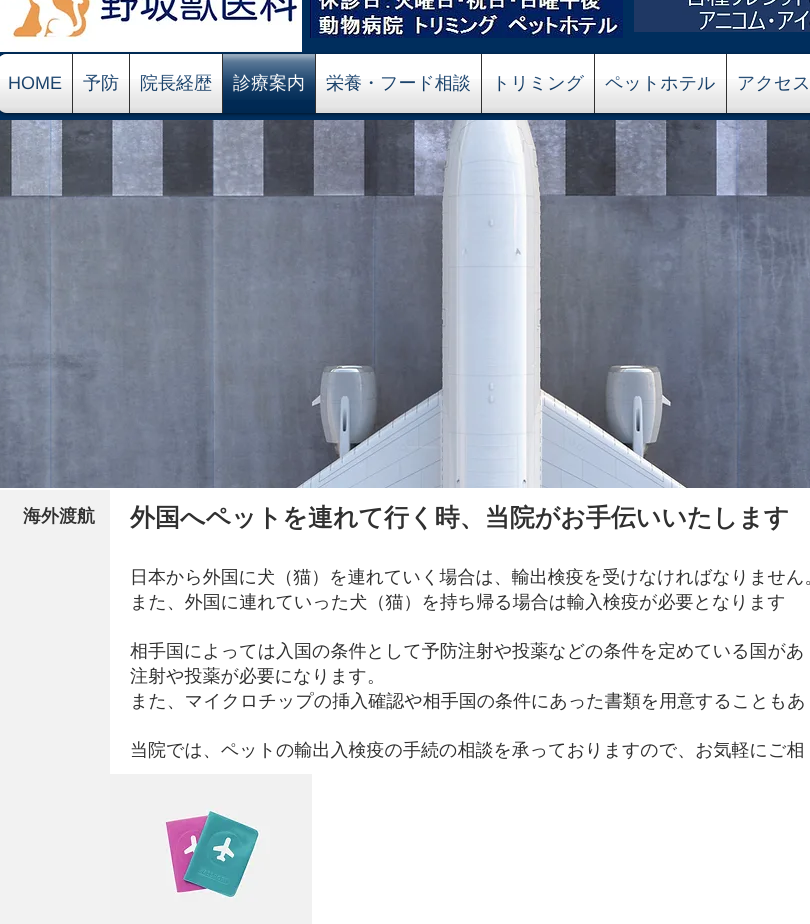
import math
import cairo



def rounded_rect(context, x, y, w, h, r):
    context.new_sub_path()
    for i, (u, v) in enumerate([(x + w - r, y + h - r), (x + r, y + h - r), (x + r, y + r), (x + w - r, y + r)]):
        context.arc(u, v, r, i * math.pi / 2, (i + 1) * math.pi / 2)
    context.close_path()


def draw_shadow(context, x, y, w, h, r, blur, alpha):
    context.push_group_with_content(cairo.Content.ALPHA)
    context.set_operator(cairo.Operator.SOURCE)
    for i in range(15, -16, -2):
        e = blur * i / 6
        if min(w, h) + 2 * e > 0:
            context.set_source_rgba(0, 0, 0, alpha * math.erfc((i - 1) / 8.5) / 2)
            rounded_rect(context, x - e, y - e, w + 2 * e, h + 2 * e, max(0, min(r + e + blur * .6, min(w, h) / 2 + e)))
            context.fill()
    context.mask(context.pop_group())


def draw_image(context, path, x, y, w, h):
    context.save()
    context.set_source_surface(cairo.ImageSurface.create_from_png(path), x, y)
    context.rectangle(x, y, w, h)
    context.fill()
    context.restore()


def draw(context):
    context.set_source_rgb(0, 46 / 255, 93 / 255)
    context.paint()
    draw_image(context, "images/1.png", 0, 0, 302, 52)
    draw_image(context, "images/2.png", 310, 0, 313, 38)
    draw_image(context, "images/3.png", 634, 0, 176, 32)
    context.set_source_rgb(0, 0, 0)
    draw_shadow(context, -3, 55, 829, 59, 10, 2, 0.6)
    draw_image(context, "images/4.png", 0, 54, 7, 3)
    draw_image(context, "images/5.png", 0, 110, 7, 3)
    context.save()
    rounded_rect(context, -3, 54, 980, 59, 10)
    context.clip()
    context.set_source_rgb(1, 1, 1)
    context.rectangle(0, 54, 72, 59)
    context.fill()
    context.restore()
    context.set_source_rgb(1, 1, 1)
    context.rectangle(73, 54, 56, 59)
    context.fill()
    context.set_source_rgb(48 / 255, 48 / 255, 48 / 255)
    context.rectangle(72, 54, 1, 59)
    context.fill()
    context.set_source_rgb(1, 1, 1)
    context.rectangle(130, 54, 92, 59)
    context.fill()
    context.set_source_rgb(48 / 255, 48 / 255, 48 / 255)
    context.rectangle(129, 54, 1, 59)
    context.fill()
    context.set_source_rgb(0, 46 / 255, 93 / 255)
    context.rectangle(223, 54, 92, 59)
    context.fill()
    context.set_source_rgb(48 / 255, 48 / 255, 48 / 255)
    context.rectangle(222, 54, 1, 59)
    context.fill()
    context.set_source_rgb(1, 1, 1)
    context.rectangle(316, 54, 165, 59)
    context.fill()
    context.set_source_rgb(48 / 255, 48 / 255, 48 / 255)
    context.rectangle(315, 54, 1, 59)
    context.fill()
    context.set_source_rgb(1, 1, 1)
    context.rectangle(482, 54, 112, 59)
    context.fill()
    context.set_source_rgb(48 / 255, 48 / 255, 48 / 255)
    context.rectangle(481, 54, 1, 59)
    context.fill()
    context.set_source_rgb(1, 1, 1)
    context.rectangle(595, 54, 131, 59)
    context.fill()
    context.set_source_rgb(48 / 255, 48 / 255, 48 / 255)
    context.rectangle(594, 54, 1, 59)
    context.fill()
    context.set_source_rgb(1, 1, 1)
    context.rectangle(727, 54, 83, 59)
    context.fill()
    context.set_source_rgb(48 / 255, 48 / 255, 48 / 255)
    context.rectangle(726, 54, 1, 59)
    context.fill()
    context.set_source_rgb(1, 1, 1)
    context.rectangle(0, 488, 810, 436)
    context.fill()
    draw_image(context, "images/22.png", 0, 120, 810, 368)
    context.set_source_rgb(242 / 255, 242 / 255, 242 / 255)
    context.rectangle(0, 490, 110, 434)
    context.fill()
    draw_image(context, "images/23.png", 110, 774, 202, 150)
    context.select_font_face("Liberation Sans")
    context.set_font_size(18)
    context.set_source_rgb(0, 46 / 255, 93 / 255)
    context.move_to(8, 89)
    context.show_text("HOME")
    draw_image(context, "images/6.png", 0, 54, 62, 35)
    draw_image(context, "images/7.png", 0, 79, 72, 34)
    context.select_font_face("WenQuanYi Zen Hei Medium")
    context.move_to(83, 89)
    context.show_text("予防")
    draw_image(context, "images/8.png", 83, 74, 36, 18)
    draw_image(context, "images/9.png", 73, 79, 56, 34)
    context.move_to(140, 89)
    context.show_text("院長経歴")
    draw_image(context, "images/10.png", 141, 74, 71, 18)
    draw_image(context, "images/11.png", 130, 79, 92, 34)
    context.set_source_rgb(1, 1, 1)
    context.move_to(233, 89)
    context.show_text("診療案内")
    draw_image(context, "images/12.png", 223, 54, 92, 46)
    draw_image(context, "images/13.png", 223, 79, 92, 34)
    context.set_source_rgb(0, 46 / 255, 93 / 255)
    context.move_to(326, 89)
    context.show_text("栄養・フード相談")
    draw_image(context, "images/14.png", 326, 74, 144, 18)
    draw_image(context, "images/15.png", 316, 79, 165, 34)
    context.move_to(492, 89)
    context.show_text("トリミング")
    draw_image(context, "images/16.png", 498, 75, 86, 16)
    draw_image(context, "images/17.png", 482, 79, 112, 34)
    context.move_to(605, 89)
    context.show_text("ペットホテル")
    draw_image(context, "images/18.png", 606, 76, 109, 15)
    draw_image(context, "images/19.png", 595, 79, 131, 34)
    context.move_to(737, 89)
    context.show_text("アクセス")
    draw_image(context, "images/20.png", 739, 76, 69, 15)
    draw_image(context, "images/21.png", 727, 79, 83, 34)
    context.select_font_face("WenQuanYi Zen Hei", cairo.FontSlant.NORMAL, cairo.FontWeight.BOLD)
    context.set_source_rgb(48 / 255, 48 / 255, 48 / 255)
    context.move_to(23, 522)
    context.show_text("海外渡航")
    context.set_font_size(25)
    context.move_to(130, 526)
    context.show_text("外国へペットを連れて行く時、当院がお手伝いいたします")
    context.select_font_face("WenQuanYi Zen Hei Medium")
    context.set_font_size(18)
    context.move_to(130, 583)
    context.show_text("日本から外国に犬（猫）を連れていく場合は、輸出検疫を受けなければなりません。")
    context.move_to(130, 608)
    context.show_text("また、外国に連れていった犬（猫）を持ち帰る場合は輸入検疫が必要となります")
    context.move_to(130, 657)
    context.show_text("相手国によっては入国の条件として予防注射や投薬などの条件を定めている国があ")
    context.move_to(130, 682)
    context.show_text("注射や投薬が必要になります。")
    context.move_to(130, 707)
    context.show_text("また、マイクロチップの挿入確認や相手国の条件にあった書類を用意することもあ")
    context.move_to(130, 756)
    context.show_text("当院では、ペットの輸出入検疫の手続の相談を承っておりますので、お気軽にご相")


surface = cairo.ImageSurface(cairo.Format.RGB24, 810, 924)
context = cairo.Context(surface)
options = cairo.FontOptions()
options.set_hint_metrics(cairo.HintMetrics.OFF)
options.set_hint_style(cairo.HintStyle.NONE)
context.set_font_options(options)
context.set_miter_limit(4)
draw(context)
surface.write_to_png("out.png")
